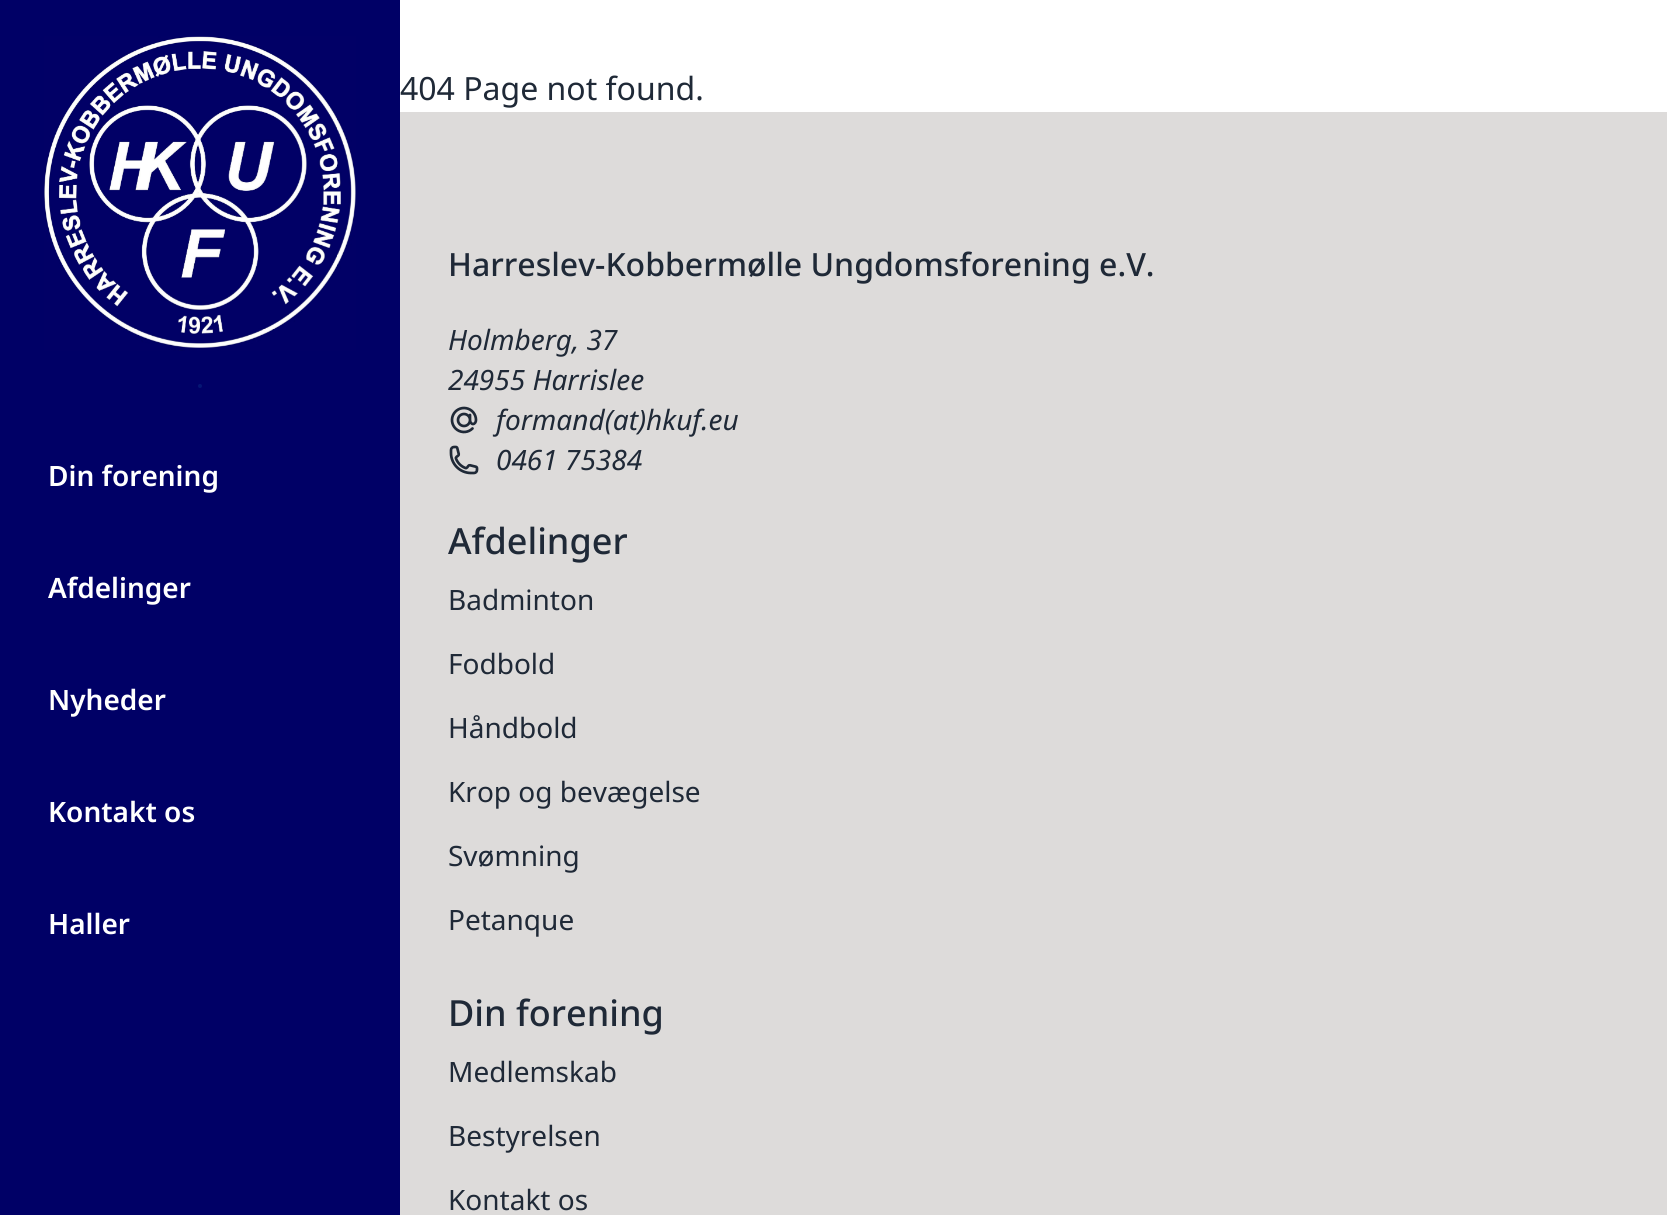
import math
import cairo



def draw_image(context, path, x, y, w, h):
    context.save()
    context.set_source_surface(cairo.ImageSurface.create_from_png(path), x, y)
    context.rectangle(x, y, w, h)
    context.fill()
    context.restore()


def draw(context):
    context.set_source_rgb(1, 1, 1)
    context.paint()
    context.set_source_rgb(0, 0, 102 / 255)
    context.rectangle(0, 0, 400, 1215)
    context.fill()
    draw_image(context, "images/1.png", 44, 36, 312, 315)
    context.set_source_rgb(5 / 255, 22 / 255, 116 / 255)
    context.arc(200, 386, 2, 0, 2 * math.pi)
    context.fill()
    context.set_source_rgb(221 / 255, 219 / 255, 218 / 255)
    context.rectangle(400, 112, 1267, 1103)
    context.fill()
    draw_image(context, "images/2.png", 450, 406, 28, 28)
    draw_image(context, "images/3.png", 449, 445, 30, 30)
    context.select_font_face("Noto Sans SemiBold")
    context.set_font_size(28)
    context.set_source_rgb(1, 1, 1)
    context.move_to(48, 486)
    context.show_text("Din forening")
    context.move_to(48, 598)
    context.show_text("Afdelinger")
    context.move_to(48, 710)
    context.show_text("Nyheder")
    context.move_to(48, 822)
    context.show_text("Kontakt os")
    context.move_to(48, 934)
    context.show_text("Haller")
    context.select_font_face("Noto Sans")
    context.set_font_size(32)
    context.set_source_rgb(31 / 255, 41 / 255, 55 / 255)
    context.move_to(400, 100)
    context.show_text("404 Page not found.")
    context.select_font_face("Noto Sans Medium")
    context.move_to(448, 276)
    context.show_text("Harreslev-Kobbermølle Ungdomsforening e.V.")
    context.select_font_face("Noto Sans", cairo.FontSlant.ITALIC)
    context.set_font_size(28)
    context.move_to(448, 350)
    context.show_text("Holmberg, 37")
    context.move_to(448, 390)
    context.show_text("24955 Harrislee")
    context.move_to(496, 430)
    context.show_text("formand(at)hkuf.eu")
    context.move_to(496, 470)
    context.show_text("0461 75384")
    context.select_font_face("Noto Sans Medium")
    context.set_font_size(36)
    context.move_to(448, 554)
    context.show_text("Afdelinger")
    context.select_font_face("Noto Sans")
    context.set_font_size(28)
    context.move_to(448, 610)
    context.show_text("Badminton")
    context.move_to(448, 674)
    context.show_text("Fodbold")
    context.move_to(448, 738)
    context.show_text("Håndbold")
    context.move_to(448, 802)
    context.show_text("Krop og bevægelse")
    context.move_to(448, 866)
    context.show_text("Svømning")
    context.move_to(448, 930)
    context.show_text("Petanque")
    context.select_font_face("Noto Sans Medium")
    context.set_font_size(36)
    context.move_to(448, 1026)
    context.show_text("Din forening")
    context.select_font_face("Noto Sans")
    context.set_font_size(28)
    context.move_to(448, 1082)
    context.show_text("Medlemskab")
    context.move_to(448, 1146)
    context.show_text("Bestyrelsen")
    context.move_to(448, 1210)
    context.show_text("Kontakt os")


surface = cairo.ImageSurface(cairo.Format.RGB24, 1667, 1215)
context = cairo.Context(surface)
options = cairo.FontOptions()
options.set_hint_metrics(cairo.HintMetrics.OFF)
options.set_hint_style(cairo.HintStyle.NONE)
context.set_font_options(options)
context.set_miter_limit(4)
draw(context)
surface.write_to_png("out.png")
